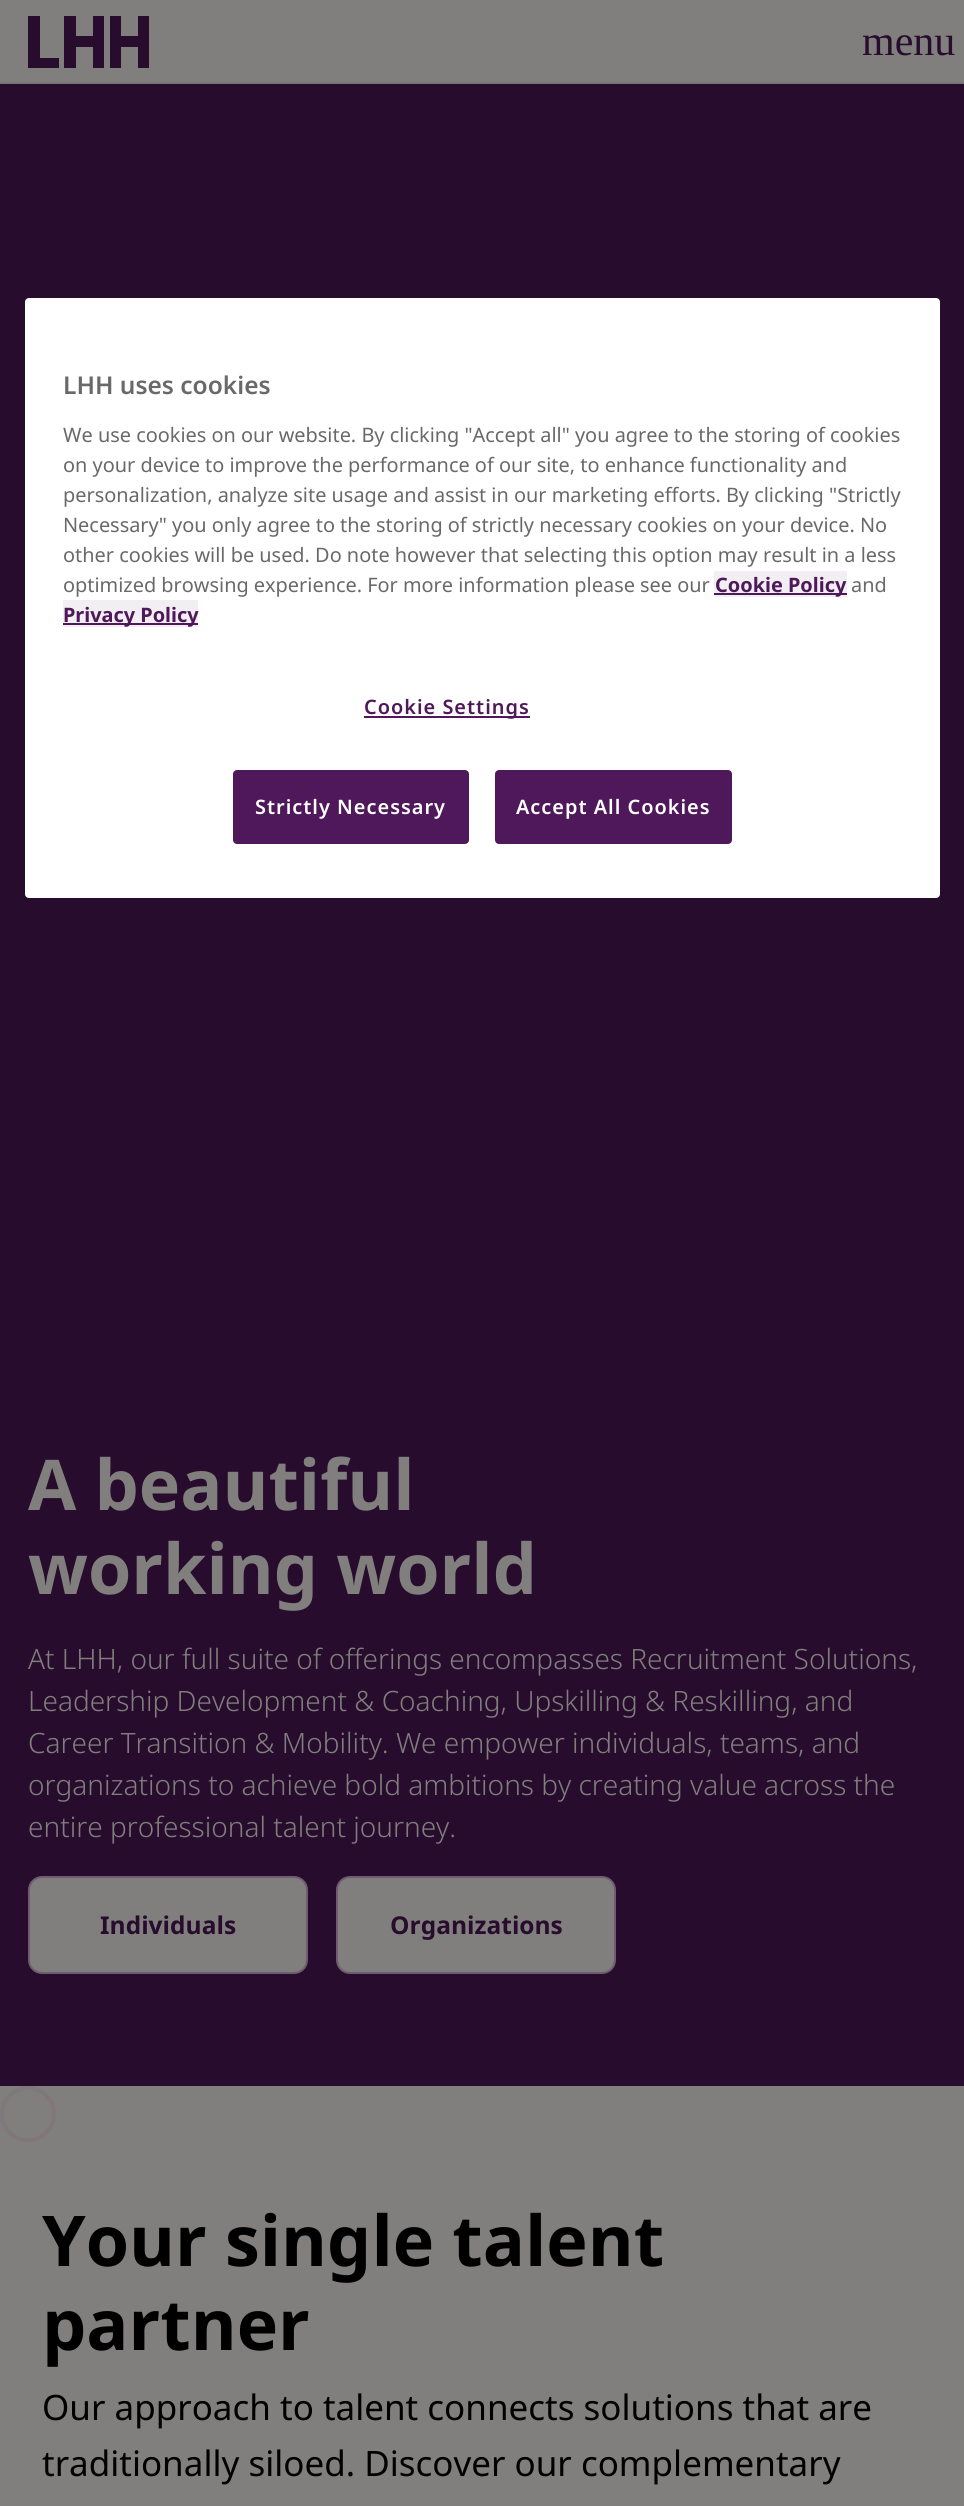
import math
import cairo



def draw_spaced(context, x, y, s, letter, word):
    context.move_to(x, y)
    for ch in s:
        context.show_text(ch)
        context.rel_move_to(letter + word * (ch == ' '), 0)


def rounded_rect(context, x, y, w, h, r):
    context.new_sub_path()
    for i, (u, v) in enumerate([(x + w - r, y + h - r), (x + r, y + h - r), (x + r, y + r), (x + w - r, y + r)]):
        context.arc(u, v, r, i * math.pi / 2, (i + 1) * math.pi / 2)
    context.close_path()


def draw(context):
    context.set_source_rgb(128 / 255, 127 / 255, 125 / 255)
    context.paint()
    context.set_source_rgb(118 / 255, 118 / 255, 119 / 255)
    context.rectangle(0, 82, 964, 2)
    context.fill()
    context.set_source_rgb(40 / 255, 12 / 255, 45 / 255)
    context.set_fill_rule(cairo.FillRule.EVEN_ODD)
    context.new_path()
    context.move_to(28, 16)
    context.line_to(40, 16)
    context.line_to(40, 58)
    context.line_to(59, 58)
    context.line_to(59, 68)
    context.line_to(28, 68)
    context.close_path()
    context.move_to(64, 16)
    context.line_to(76, 16)
    context.line_to(76, 36)
    context.line_to(93, 36)
    context.line_to(93, 16)
    context.line_to(104, 16)
    context.line_to(104, 68)
    context.line_to(93, 68)
    context.line_to(93, 47)
    context.line_to(76, 47)
    context.line_to(76, 68)
    context.line_to(64, 68)
    context.close_path()
    context.move_to(121, 16)
    context.line_to(110, 16)
    context.line_to(110, 68)
    context.line_to(121, 68)
    context.line_to(121, 47)
    context.line_to(138, 47)
    context.line_to(138, 68)
    context.line_to(149, 68)
    context.line_to(149, 16)
    context.line_to(138, 16)
    context.line_to(138, 36)
    context.line_to(121, 36)
    context.close_path()
    context.fill()
    context.rectangle(0, 84, 964, 2002)
    context.fill()
    context.set_source_rgb(128 / 255, 127 / 255, 125 / 255)
    rounded_rect(context, 29, 1877, 278, 96, 13)
    context.fill_preserve()
    context.set_source_rgb(111 / 255, 92 / 255, 115 / 255)
    context.stroke()
    context.set_source_rgb(128 / 255, 127 / 255, 125 / 255)
    rounded_rect(context, 337, 1877, 278, 96, 13)
    context.fill_preserve()
    context.set_source_rgb(111 / 255, 92 / 255, 115 / 255)
    context.stroke()
    context.arc(28, 2114, 26, 0, 2 * math.pi)
    context.set_source_rgb(128 / 255, 119 / 255, 118 / 255)
    context.set_line_width(4)
    context.stroke()
    context.new_path()
    context.move_to(9.5, 2132.5)
    context.curve_to(-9, 2114.5, 8, 2083, 33, 2088.5)
    context.curve_to(38, 2089.5, 43, 2092, 46.5, 2095.5)
    context.set_source_rgb(125 / 255, 122 / 255, 126 / 255)
    context.set_line_width(3.5)
    context.stroke()
    context.set_source_rgb(1, 1, 1)
    rounded_rect(context, 25, 298, 915, 600, 4)
    context.fill()
    context.set_source_rgb(242 / 255, 239 / 255, 242 / 255)
    context.rectangle(714, 571, 133, 26)
    context.fill()
    context.set_source_rgb(79 / 255, 24 / 255, 90 / 255)
    context.rectangle(714, 593, 133, 2)
    context.fill()
    context.set_source_rgb(242 / 255, 239 / 255, 242 / 255)
    context.rectangle(63, 600, 135, 27)
    context.fill()
    context.set_source_rgb(79 / 255, 24 / 255, 90 / 255)
    context.rectangle(63, 623, 135, 2)
    context.fill()
    context.rectangle(364, 716, 166, 2)
    context.fill()
    rounded_rect(context, 234, 771, 234, 72, 3)
    context.fill_preserve()
    context.set_line_width(2)
    context.stroke()
    rounded_rect(context, 496, 771, 235, 72, 3)
    context.fill_preserve()
    context.stroke()
    context.select_font_face("Liberation Serif")
    context.set_font_size(42)
    context.set_source_rgb(40 / 255, 12 / 255, 45 / 255)
    context.move_to(862, 55)
    context.show_text("menu")
    context.select_font_face("Noto Sans", cairo.FontSlant.NORMAL, cairo.FontWeight.BOLD)
    context.set_font_size(70)
    context.set_source_rgb(128 / 255, 127 / 255, 125 / 255)
    context.move_to(28, 1510)
    context.show_text("A beautiful")
    context.move_to(28, 1594)
    context.show_text("working world")
    context.select_font_face("Noto Sans Light")
    context.set_font_size(28)
    context.move_to(28, 1669)
    context.show_text("At LHH, our full suite of offerings encompasses Recruitment Solutions,")
    context.move_to(28, 1711)
    context.show_text("Leadership Development & Coaching, Upskilling & Reskilling, and")
    context.move_to(28, 1753)
    context.show_text("Career Transition & Mobility. We empower individuals, teams, and")
    context.move_to(28, 1795)
    context.show_text("organizations to achieve bold ambitions by creating value across the")
    context.move_to(28, 1837)
    context.show_text("entire professional talent journey.")
    context.select_font_face("Noto Sans", cairo.FontSlant.NORMAL, cairo.FontWeight.BOLD)
    context.set_font_size(24.5)
    context.set_source_rgb(40 / 255, 12 / 255, 45 / 255)
    context.move_to(100, 1934)
    context.show_text("Individuals")
    context.move_to(390, 1934)
    context.show_text("Organizations")
    context.set_font_size(70)
    context.set_source_rgb(0, 0, 0)
    context.move_to(42, 2266)
    context.show_text("Your single talent")
    context.move_to(42, 2350)
    context.show_text("partner")
    context.select_font_face("Noto Sans")
    context.set_font_size(35)
    context.move_to(42, 2420)
    context.show_text("Our approach to talent connects solutions that are")
    context.move_to(42, 2476)
    context.show_text("traditionally siloed. Discover our complementary")
    context.select_font_face("Noto Sans SemiBold")
    context.set_font_size(24.5)
    context.set_source_rgb(105 / 255, 105 / 255, 105 / 255)
    context.move_to(63, 394)
    context.show_text("LHH uses cookies")
    context.select_font_face("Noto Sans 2")
    context.set_font_size(19.9)
    context.move_to(63, 442)
    context.show_text("We use cookies on our website. By clicking \"Accept all\" you agree to the storing of cookies")
    context.move_to(63, 472)
    context.show_text("on your device to improve the performance of our site, to enhance functionality and")
    context.move_to(63, 502)
    context.show_text("personalization, analyze site usage and assist in our marketing efforts. By clicking \"Strictly")
    context.move_to(63, 532)
    context.show_text("Necessary\" you only agree to the storing of strictly necessary cookies on your device. No")
    context.move_to(63, 562)
    context.show_text("other cookies will be used. Do note however that selecting this option may result in a less")
    context.move_to(63, 592)
    context.show_text("optimized browsing experience. For more information please see our")
    context.select_font_face("Noto Sans 2", cairo.FontSlant.NORMAL, cairo.FontWeight.BOLD)
    context.set_source_rgb(79 / 255, 24 / 255, 90 / 255)
    context.move_to(715, 592)
    context.show_text("Cookie Policy")
    context.select_font_face("Noto Sans 2")
    context.set_source_rgb(105 / 255, 105 / 255, 105 / 255)
    context.move_to(851, 592)
    context.show_text("and")
    context.select_font_face("Noto Sans 2", cairo.FontSlant.NORMAL, cairo.FontWeight.BOLD)
    context.set_source_rgb(79 / 255, 24 / 255, 90 / 255)
    context.move_to(63, 622)
    context.show_text("Privacy Policy")
    context.select_font_face("Noto Sans SemiBold")
    draw_spaced(context, 364, 714, "Cookie Settings", 1, 0)
    context.set_source_rgb(1, 1, 1)
    draw_spaced(context, 255, 814, "Strictly Necessary", 1, 0)
    draw_spaced(context, 516, 814, "Accept All Cookies", 1, 0)


surface = cairo.ImageSurface(cairo.Format.RGB24, 964, 2506)
context = cairo.Context(surface)
options = cairo.FontOptions()
options.set_hint_metrics(cairo.HintMetrics.OFF)
options.set_hint_style(cairo.HintStyle.NONE)
context.set_font_options(options)
context.set_miter_limit(4)
draw(context)
surface.write_to_png("out.png")
